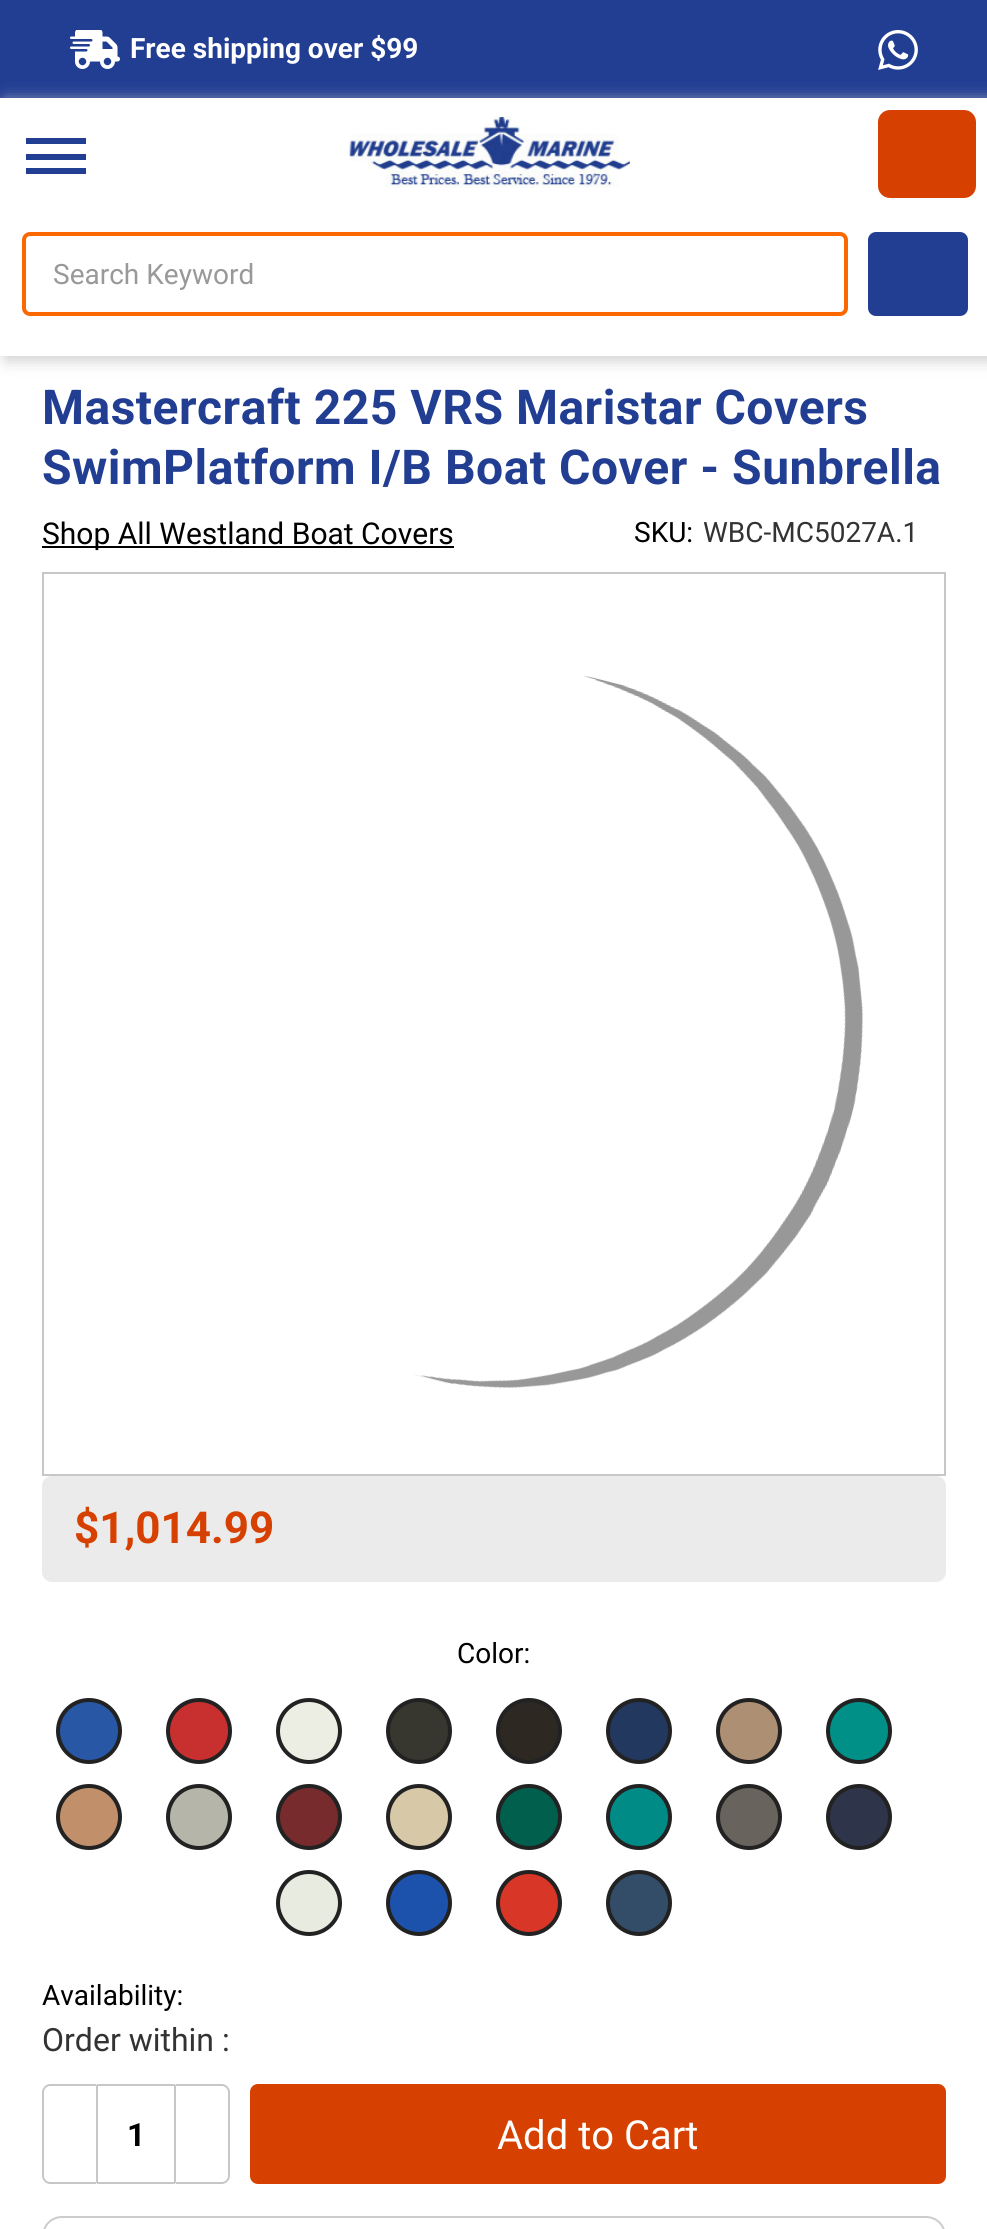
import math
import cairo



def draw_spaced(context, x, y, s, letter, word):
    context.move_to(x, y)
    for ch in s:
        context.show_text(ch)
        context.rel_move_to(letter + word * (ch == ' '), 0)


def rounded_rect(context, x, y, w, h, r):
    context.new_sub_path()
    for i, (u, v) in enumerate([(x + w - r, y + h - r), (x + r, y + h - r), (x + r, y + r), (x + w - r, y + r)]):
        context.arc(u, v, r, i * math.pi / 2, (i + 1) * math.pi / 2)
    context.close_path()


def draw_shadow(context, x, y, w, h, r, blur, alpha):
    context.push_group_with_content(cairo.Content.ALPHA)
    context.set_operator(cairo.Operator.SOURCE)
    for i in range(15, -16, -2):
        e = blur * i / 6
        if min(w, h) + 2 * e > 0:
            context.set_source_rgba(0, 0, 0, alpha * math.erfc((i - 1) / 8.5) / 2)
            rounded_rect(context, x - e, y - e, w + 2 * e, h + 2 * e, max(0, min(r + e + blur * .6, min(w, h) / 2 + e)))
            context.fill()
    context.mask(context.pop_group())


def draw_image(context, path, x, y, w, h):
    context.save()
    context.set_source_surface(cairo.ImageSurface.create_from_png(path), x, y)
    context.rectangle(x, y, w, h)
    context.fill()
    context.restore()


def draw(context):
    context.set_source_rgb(1, 1, 1)
    context.paint()
    context.set_source_rgb(34 / 255, 62 / 255, 146 / 255)
    context.rectangle(0, 0, 987, 98)
    context.fill()
    draw_image(context, "images/1.png", 70, 30, 50, 39)
    draw_image(context, "images/2.png", 878, 30, 40, 40)
    context.save()
    context.set_fill_rule(cairo.FillRule.EVEN_ODD)
    context.new_path()
    context.move_to(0, 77)
    context.line_to(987, 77)
    context.line_to(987, 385)
    context.line_to(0, 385)
    context.close_path()
    context.move_to(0, 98)
    context.line_to(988, 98)
    context.line_to(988, 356)
    context.line_to(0, 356)
    context.close_path()
    context.clip()
    context.set_source_rgb(204 / 255, 204 / 255, 204 / 255)
    draw_shadow(context, 6, 102, 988, 258, 0, 8, 1)
    context.restore()
    context.rectangle(26, 154, 60, 6)
    context.fill()
    context.rectangle(26, 138, 60, 6)
    context.fill()
    context.rectangle(26, 168, 60, 6)
    context.fill()
    draw_image(context, "images/3.png", 349, 116, 281, 72)
    context.set_source_rgb(214 / 255, 64 / 255, 0)
    rounded_rect(context, 880, 112, 94, 84, 10)
    context.fill_preserve()
    context.set_line_width(4)
    context.stroke()
    rounded_rect(context, 24, 234, 822, 80, 6)
    context.set_source_rgb(252 / 255, 104 / 255, 0)
    context.stroke()
    context.set_source_rgb(34 / 255, 62 / 255, 146 / 255)
    rounded_rect(context, 869, 233, 98, 82, 7)
    context.fill_preserve()
    context.set_line_width(2)
    context.stroke()
    context.set_source_rgb(0, 0, 0)
    context.rectangle(42, 546, 412, 2)
    context.fill()
    context.rectangle(43, 573, 902, 902)
    context.set_source_rgb(199 / 255, 199 / 255, 199 / 255)
    context.stroke()
    draw_image(context, "images/4.png", 414, 675, 449, 713)
    context.set_source_rgb(235 / 255, 235 / 255, 235 / 255)
    rounded_rect(context, 42, 1476, 904, 106, 10)
    context.fill()
    context.set_source_rgb(40 / 255, 87 / 255, 165 / 255)
    context.arc(89, 1731, 31, 0, 2 * math.pi)
    context.fill_preserve()
    context.set_source_rgb(34 / 255, 34 / 255, 34 / 255)
    context.set_line_width(4)
    context.stroke()
    context.set_source_rgb(200 / 255, 48 / 255, 47 / 255)
    context.arc(199, 1731, 31, 0, 2 * math.pi)
    context.fill_preserve()
    context.set_source_rgb(34 / 255, 34 / 255, 34 / 255)
    context.stroke()
    context.set_source_rgb(236 / 255, 238 / 255, 227 / 255)
    context.arc(309, 1731, 31, 0, 2 * math.pi)
    context.fill_preserve()
    context.set_source_rgb(34 / 255, 34 / 255, 34 / 255)
    context.stroke()
    context.set_source_rgb(55 / 255, 55 / 255, 47 / 255)
    context.arc(419, 1731, 31, 0, 2 * math.pi)
    context.fill_preserve()
    context.set_source_rgb(34 / 255, 34 / 255, 34 / 255)
    context.stroke()
    context.set_source_rgb(45 / 255, 40 / 255, 34 / 255)
    context.arc(529, 1731, 31, 0, 2 * math.pi)
    context.fill_preserve()
    context.set_source_rgb(34 / 255, 34 / 255, 34 / 255)
    context.stroke()
    context.set_source_rgb(34 / 255, 56 / 255, 95 / 255)
    context.arc(639, 1731, 31, 0, 2 * math.pi)
    context.fill_preserve()
    context.set_source_rgb(34 / 255, 34 / 255, 34 / 255)
    context.stroke()
    context.set_source_rgb(173 / 255, 143 / 255, 115 / 255)
    context.arc(749, 1731, 31, 0, 2 * math.pi)
    context.fill_preserve()
    context.set_source_rgb(34 / 255, 34 / 255, 34 / 255)
    context.stroke()
    context.set_source_rgb(0, 144 / 255, 135 / 255)
    context.arc(859, 1731, 31, 0, 2 * math.pi)
    context.fill_preserve()
    context.set_source_rgb(34 / 255, 34 / 255, 34 / 255)
    context.stroke()
    context.set_source_rgb(193 / 255, 144 / 255, 107 / 255)
    context.arc(89, 1817, 31, 0, 2 * math.pi)
    context.fill_preserve()
    context.set_source_rgb(34 / 255, 34 / 255, 34 / 255)
    context.stroke()
    context.set_source_rgb(181 / 255, 181 / 255, 169 / 255)
    context.arc(199, 1817, 31, 0, 2 * math.pi)
    context.fill_preserve()
    context.set_source_rgb(34 / 255, 34 / 255, 34 / 255)
    context.stroke()
    context.set_source_rgb(119 / 255, 43 / 255, 45 / 255)
    context.arc(309, 1817, 31, 0, 2 * math.pi)
    context.fill_preserve()
    context.set_source_rgb(34 / 255, 34 / 255, 34 / 255)
    context.stroke()
    context.set_source_rgb(215 / 255, 200 / 255, 167 / 255)
    context.arc(419, 1817, 31, 0, 2 * math.pi)
    context.fill_preserve()
    context.set_source_rgb(34 / 255, 34 / 255, 34 / 255)
    context.stroke()
    context.set_source_rgb(1 / 255, 95 / 255, 77 / 255)
    context.arc(529, 1817, 31, 0, 2 * math.pi)
    context.fill_preserve()
    context.set_source_rgb(34 / 255, 34 / 255, 34 / 255)
    context.stroke()
    context.set_source_rgb(0, 139 / 255, 134 / 255)
    context.arc(639, 1817, 31, 0, 2 * math.pi)
    context.fill_preserve()
    context.set_source_rgb(34 / 255, 34 / 255, 34 / 255)
    context.stroke()
    context.set_source_rgb(104 / 255, 99 / 255, 93 / 255)
    context.arc(749, 1817, 31, 0, 2 * math.pi)
    context.fill_preserve()
    context.set_source_rgb(34 / 255, 34 / 255, 34 / 255)
    context.stroke()
    context.set_source_rgb(46 / 255, 52 / 255, 74 / 255)
    context.arc(859, 1817, 31, 0, 2 * math.pi)
    context.fill_preserve()
    context.set_source_rgb(34 / 255, 34 / 255, 34 / 255)
    context.stroke()
    context.set_source_rgb(232 / 255, 235 / 255, 224 / 255)
    context.arc(309, 1903, 31, 0, 2 * math.pi)
    context.fill_preserve()
    context.set_source_rgb(34 / 255, 34 / 255, 34 / 255)
    context.stroke()
    context.set_source_rgb(28 / 255, 82 / 255, 172 / 255)
    context.arc(419, 1903, 31, 0, 2 * math.pi)
    context.fill_preserve()
    context.set_source_rgb(34 / 255, 34 / 255, 34 / 255)
    context.stroke()
    context.set_source_rgb(216 / 255, 54 / 255, 39 / 255)
    context.arc(529, 1903, 31, 0, 2 * math.pi)
    context.fill_preserve()
    context.set_source_rgb(34 / 255, 34 / 255, 34 / 255)
    context.stroke()
    context.set_source_rgb(51 / 255, 77 / 255, 104 / 255)
    context.arc(639, 1903, 31, 0, 2 * math.pi)
    context.fill_preserve()
    context.set_source_rgb(34 / 255, 34 / 255, 34 / 255)
    context.stroke()
    context.set_source_rgb(199 / 255, 199 / 255, 199 / 255)
    context.set_fill_rule(cairo.FillRule.EVEN_ODD)
    context.new_path()
    context.move_to(50, 2084)
    context.line_to(96, 2084)
    context.line_to(96, 2184)
    context.line_to(50, 2184)
    context.curve_to(46, 2184, 42, 2180, 42, 2176)
    context.line_to(42, 2092)
    context.curve_to(42, 2088, 46, 2084, 50, 2084)
    context.close_path()
    context.move_to(50, 2086)
    context.line_to(96, 2086)
    context.line_to(96, 2182)
    context.line_to(50, 2182)
    context.curve_to(47, 2182, 44, 2179, 44, 2176)
    context.line_to(44, 2092)
    context.curve_to(44, 2089, 47, 2086, 50, 2086)
    context.close_path()
    context.fill()
    rounded_rect(context, 97, 2085, 78, 98, 1)
    context.set_line_width(2)
    context.stroke()
    context.new_path()
    context.move_to(176, 2084)
    context.line_to(222, 2084)
    context.curve_to(226, 2084, 230, 2088, 230, 2092)
    context.line_to(230, 2176)
    context.curve_to(230, 2180, 226, 2184, 222, 2184)
    context.line_to(176, 2184)
    context.close_path()
    context.move_to(176, 2086)
    context.line_to(222, 2086)
    context.curve_to(225, 2086, 228, 2089, 228, 2092)
    context.line_to(228, 2176)
    context.curve_to(228, 2179, 225, 2182, 222, 2182)
    context.line_to(176, 2182)
    context.close_path()
    context.fill()
    context.set_source_rgb(214 / 255, 64 / 255, 0)
    rounded_rect(context, 250, 2084, 696, 100, 8)
    context.fill()
    rounded_rect(context, 43, 2217, 902, 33, 19)
    context.set_source_rgb(204 / 255, 204 / 255, 204 / 255)
    context.stroke()
    context.select_font_face("Roboto", cairo.FontSlant.NORMAL, cairo.FontWeight.BOLD)
    context.set_font_size(28)
    context.set_source_rgb(1, 1, 1)
    context.move_to(130, 58)
    context.show_text("Free shipping over $99")
    context.select_font_face("Roboto")
    context.set_source_rgb(153 / 255, 153 / 255, 153 / 255)
    context.move_to(53, 284)
    context.show_text("Search Keyword")
    context.select_font_face("Roboto", cairo.FontSlant.NORMAL, cairo.FontWeight.BOLD)
    context.set_font_size(48)
    context.set_source_rgb(34 / 255, 62 / 255, 146 / 255)
    draw_spaced(context, 42, 424, "Mastercraft 225 VRS Maristar Covers", 0.5, 0)
    draw_spaced(context, 42, 484, "SwimPlatform I/B Boat Cover - Sunbrella", 0.5, 0)
    context.select_font_face("Roboto")
    context.set_font_size(30)
    context.set_source_rgb(0, 0, 0)
    context.move_to(42, 544)
    context.show_text("Shop All Westland Boat Covers")
    context.set_font_size(28)
    context.move_to(634, 542)
    context.show_text("SKU:")
    context.set_source_rgb(51 / 255, 51 / 255, 51 / 255)
    context.move_to(703, 542)
    context.show_text("WBC-MC5027A.1")
    context.select_font_face("Roboto", cairo.FontSlant.NORMAL, cairo.FontWeight.BOLD)
    context.set_font_size(44)
    context.set_source_rgb(214 / 255, 64 / 255, 0)
    context.move_to(74, 1543)
    context.show_text("$1,014.99")
    context.select_font_face("Roboto")
    context.set_font_size(28)
    context.set_source_rgb(0, 0, 0)
    context.move_to(457, 1663)
    context.show_text("Color:")
    context.move_to(42, 2005)
    context.show_text("Availability:")
    context.set_font_size(32)
    context.set_source_rgb(51 / 255, 51 / 255, 51 / 255)
    context.move_to(42, 2051)
    context.show_text("Order within :")
    context.select_font_face("Roboto", cairo.FontSlant.NORMAL, cairo.FontWeight.BOLD)
    context.set_source_rgb(0, 0, 0)
    context.move_to(127, 2146)
    context.show_text("1")
    context.select_font_face("Roboto")
    context.set_font_size(40)
    context.set_source_rgb(1, 1, 1)
    context.move_to(497, 2149)
    context.show_text("Add to Cart")


surface = cairo.ImageSurface(cairo.Format.RGB24, 987, 2229)
context = cairo.Context(surface)
options = cairo.FontOptions()
options.set_hint_metrics(cairo.HintMetrics.OFF)
options.set_hint_style(cairo.HintStyle.NONE)
context.set_font_options(options)
context.set_miter_limit(4)
draw(context)
surface.write_to_png("out.png")
